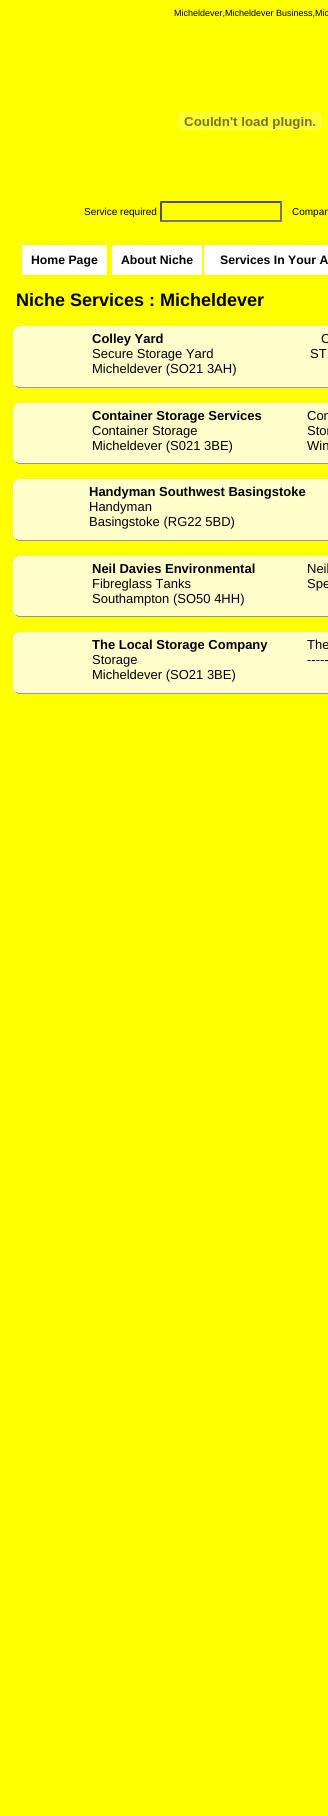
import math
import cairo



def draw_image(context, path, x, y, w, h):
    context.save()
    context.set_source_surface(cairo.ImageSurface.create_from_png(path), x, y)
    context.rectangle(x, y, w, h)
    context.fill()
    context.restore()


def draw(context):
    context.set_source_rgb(1, 1, 0)
    context.paint()
    draw_image(context, "images/1.png", 178, 112, 144, 18)
    context.set_source_rgb(79 / 255, 79 / 255, 79 / 255)
    context.new_path()
    context.move_to(160, 201)
    context.line_to(282, 201)
    context.line_to(280, 203)
    context.line_to(162, 203)
    context.close_path()
    context.fill()
    context.set_source_rgb(118 / 255, 118 / 255, 118 / 255)
    context.new_path()
    context.move_to(282, 201)
    context.line_to(282, 222)
    context.line_to(280, 220)
    context.line_to(280, 203)
    context.close_path()
    context.fill()
    context.new_path()
    context.move_to(282, 222)
    context.line_to(160, 222)
    context.line_to(162, 220)
    context.line_to(280, 220)
    context.close_path()
    context.fill()
    context.set_source_rgb(79 / 255, 79 / 255, 79 / 255)
    context.new_path()
    context.move_to(160, 222)
    context.line_to(160, 201)
    context.line_to(162, 203)
    context.line_to(162, 220)
    context.close_path()
    context.fill()
    context.set_source_rgb(1, 1, 1)
    context.rectangle(22, 245, 85, 30)
    context.fill()
    context.rectangle(112, 245, 90, 30)
    context.fill()
    context.rectangle(204, 245, 124, 30)
    context.fill()
    context.rectangle(18, 326, 310, 1)
    context.fill()
    context.set_source_rgb(1, 1, 204 / 255)
    context.rectangle(16, 327, 312, 1)
    context.fill()
    context.set_source_rgb(1, 1, 1)
    context.rectangle(16, 327, 2, 1)
    context.fill()
    context.set_source_rgb(1, 1, 204 / 255)
    context.rectangle(15, 328, 313, 1)
    context.fill()
    context.set_source_rgb(1, 1, 1)
    context.rectangle(15, 328, 1, 1)
    context.fill()
    context.set_source_rgb(1, 1, 204 / 255)
    context.rectangle(14, 329, 314, 56)
    context.fill()
    context.set_source_rgb(1, 1, 1)
    context.rectangle(14, 329, 1, 2)
    context.fill()
    context.rectangle(13, 331, 1, 52)
    context.fill()
    context.set_source_rgb(238 / 255, 238 / 255, 238 / 255)
    context.rectangle(14, 383, 1, 2)
    context.fill()
    context.set_source_rgb(1, 1, 204 / 255)
    context.rectangle(15, 385, 313, 1)
    context.fill()
    context.set_source_rgb(221 / 255, 221 / 255, 221 / 255)
    context.rectangle(15, 385, 1, 1)
    context.fill()
    context.set_source_rgb(1, 1, 204 / 255)
    context.rectangle(16, 386, 312, 1)
    context.fill()
    context.set_source_rgb(170 / 255, 170 / 255, 170 / 255)
    context.rectangle(16, 386, 2, 1)
    context.fill()
    context.set_source_rgb(153 / 255, 153 / 255, 153 / 255)
    context.rectangle(18, 387, 310, 1)
    context.fill()
    context.set_source_rgb(1, 1, 1)
    context.rectangle(18, 403, 310, 1)
    context.fill()
    context.set_source_rgb(1, 1, 204 / 255)
    context.rectangle(16, 404, 312, 1)
    context.fill()
    context.set_source_rgb(1, 1, 1)
    context.rectangle(16, 404, 2, 1)
    context.fill()
    context.set_source_rgb(1, 1, 204 / 255)
    context.rectangle(15, 405, 313, 1)
    context.fill()
    context.set_source_rgb(1, 1, 1)
    context.rectangle(15, 405, 1, 1)
    context.fill()
    context.set_source_rgb(1, 1, 204 / 255)
    context.rectangle(14, 406, 314, 55)
    context.fill()
    context.set_source_rgb(1, 1, 1)
    context.rectangle(14, 406, 1, 2)
    context.fill()
    context.rectangle(13, 408, 1, 51)
    context.fill()
    context.set_source_rgb(238 / 255, 238 / 255, 238 / 255)
    context.rectangle(14, 459, 1, 2)
    context.fill()
    context.set_source_rgb(1, 1, 204 / 255)
    context.rectangle(15, 461, 313, 1)
    context.fill()
    context.set_source_rgb(221 / 255, 221 / 255, 221 / 255)
    context.rectangle(15, 461, 1, 1)
    context.fill()
    context.set_source_rgb(1, 1, 204 / 255)
    context.rectangle(16, 462, 312, 1)
    context.fill()
    context.set_source_rgb(170 / 255, 170 / 255, 170 / 255)
    context.rectangle(16, 462, 2, 1)
    context.fill()
    context.set_source_rgb(153 / 255, 153 / 255, 153 / 255)
    context.rectangle(18, 463, 310, 1)
    context.fill()
    context.set_source_rgb(1, 1, 1)
    context.rectangle(18, 479, 310, 1)
    context.fill()
    context.set_source_rgb(1, 1, 204 / 255)
    context.rectangle(16, 480, 312, 1)
    context.fill()
    context.set_source_rgb(1, 1, 1)
    context.rectangle(16, 480, 2, 1)
    context.fill()
    context.set_source_rgb(1, 1, 204 / 255)
    context.rectangle(15, 481, 313, 1)
    context.fill()
    context.set_source_rgb(1, 1, 1)
    context.rectangle(15, 481, 1, 1)
    context.fill()
    context.set_source_rgb(1, 1, 204 / 255)
    context.rectangle(14, 482, 314, 56)
    context.fill()
    context.set_source_rgb(1, 1, 1)
    context.rectangle(14, 482, 1, 2)
    context.fill()
    context.rectangle(13, 484, 1, 52)
    context.fill()
    context.set_source_rgb(238 / 255, 238 / 255, 238 / 255)
    context.rectangle(14, 536, 1, 2)
    context.fill()
    context.set_source_rgb(1, 1, 204 / 255)
    context.rectangle(15, 538, 313, 1)
    context.fill()
    context.set_source_rgb(221 / 255, 221 / 255, 221 / 255)
    context.rectangle(15, 538, 1, 1)
    context.fill()
    context.set_source_rgb(1, 1, 204 / 255)
    context.rectangle(16, 539, 312, 1)
    context.fill()
    context.set_source_rgb(170 / 255, 170 / 255, 170 / 255)
    context.rectangle(16, 539, 2, 1)
    context.fill()
    context.set_source_rgb(153 / 255, 153 / 255, 153 / 255)
    context.rectangle(18, 540, 310, 1)
    context.fill()
    context.set_source_rgb(1, 1, 1)
    context.rectangle(18, 556, 310, 1)
    context.fill()
    context.set_source_rgb(1, 1, 204 / 255)
    context.rectangle(16, 557, 312, 1)
    context.fill()
    context.set_source_rgb(1, 1, 1)
    context.rectangle(16, 557, 2, 1)
    context.fill()
    context.set_source_rgb(1, 1, 204 / 255)
    context.rectangle(15, 558, 313, 1)
    context.fill()
    context.set_source_rgb(1, 1, 1)
    context.rectangle(15, 558, 1, 1)
    context.fill()
    context.set_source_rgb(1, 1, 204 / 255)
    context.rectangle(14, 559, 314, 55)
    context.fill()
    context.set_source_rgb(1, 1, 1)
    context.rectangle(14, 559, 1, 2)
    context.fill()
    context.rectangle(13, 561, 1, 51)
    context.fill()
    context.set_source_rgb(238 / 255, 238 / 255, 238 / 255)
    context.rectangle(14, 612, 1, 2)
    context.fill()
    context.set_source_rgb(1, 1, 204 / 255)
    context.rectangle(15, 614, 313, 1)
    context.fill()
    context.set_source_rgb(221 / 255, 221 / 255, 221 / 255)
    context.rectangle(15, 614, 1, 1)
    context.fill()
    context.set_source_rgb(1, 1, 204 / 255)
    context.rectangle(16, 615, 312, 1)
    context.fill()
    context.set_source_rgb(170 / 255, 170 / 255, 170 / 255)
    context.rectangle(16, 615, 2, 1)
    context.fill()
    context.set_source_rgb(153 / 255, 153 / 255, 153 / 255)
    context.rectangle(18, 616, 310, 1)
    context.fill()
    context.set_source_rgb(1, 1, 1)
    context.rectangle(18, 632, 310, 1)
    context.fill()
    context.set_source_rgb(1, 1, 204 / 255)
    context.rectangle(16, 633, 312, 1)
    context.fill()
    context.set_source_rgb(1, 1, 1)
    context.rectangle(16, 633, 2, 1)
    context.fill()
    context.set_source_rgb(1, 1, 204 / 255)
    context.rectangle(15, 634, 313, 1)
    context.fill()
    context.set_source_rgb(1, 1, 1)
    context.rectangle(15, 634, 1, 1)
    context.fill()
    context.set_source_rgb(1, 1, 204 / 255)
    context.rectangle(14, 635, 314, 56)
    context.fill()
    context.set_source_rgb(1, 1, 1)
    context.rectangle(14, 635, 1, 2)
    context.fill()
    context.rectangle(13, 637, 1, 52)
    context.fill()
    context.set_source_rgb(238 / 255, 238 / 255, 238 / 255)
    context.rectangle(14, 689, 1, 2)
    context.fill()
    context.set_source_rgb(1, 1, 204 / 255)
    context.rectangle(15, 691, 313, 1)
    context.fill()
    context.set_source_rgb(221 / 255, 221 / 255, 221 / 255)
    context.rectangle(15, 691, 1, 1)
    context.fill()
    context.set_source_rgb(1, 1, 204 / 255)
    context.rectangle(16, 692, 312, 1)
    context.fill()
    context.set_source_rgb(170 / 255, 170 / 255, 170 / 255)
    context.rectangle(16, 692, 2, 1)
    context.fill()
    context.set_source_rgb(153 / 255, 153 / 255, 153 / 255)
    context.rectangle(18, 693, 310, 1)
    context.fill()
    context.select_font_face("Liberation Sans")
    context.set_font_size(9)
    context.set_source_rgb(0, 0, 0)
    context.move_to(174, 16)
    context.show_text("Micheldever,Micheldever Business,Mic")
    context.set_font_size(10)
    context.move_to(84, 215)
    context.show_text("Service required")
    context.move_to(292, 215)
    context.show_text("Compan")
    context.select_font_face("Liberation Sans", cairo.FontSlant.NORMAL, cairo.FontWeight.BOLD)
    context.set_font_size(12.25)
    context.move_to(31, 264)
    context.show_text("Home Page")
    context.move_to(121, 264)
    context.show_text("About Niche")
    context.move_to(220, 264)
    context.show_text("Services In Your A")
    context.set_font_size(18)
    context.move_to(16, 306)
    context.show_text("Niche Services : Micheldever")
    context.set_font_size(13)
    context.move_to(92, 343)
    context.show_text("Colley Yard")
    context.select_font_face("Liberation Sans")
    context.move_to(92, 358)
    context.show_text("Secure Storage Yard")
    context.move_to(92, 373)
    context.show_text("Micheldever (SO21 3AH)")
    context.move_to(321, 343)
    context.show_text("C")
    context.move_to(310, 358)
    context.show_text("ST")
    context.select_font_face("Liberation Sans", cairo.FontSlant.NORMAL, cairo.FontWeight.BOLD)
    context.move_to(92, 420)
    context.show_text("Container Storage Services")
    context.select_font_face("Liberation Sans")
    context.move_to(92, 435)
    context.show_text("Container Storage")
    context.move_to(92, 450)
    context.show_text("Micheldever (S021 3BE)")
    context.move_to(307, 420)
    context.show_text("Con")
    context.move_to(307, 435)
    context.show_text("Stor")
    context.move_to(307, 450)
    context.show_text("Win")
    context.select_font_face("Liberation Sans", cairo.FontSlant.NORMAL, cairo.FontWeight.BOLD)
    context.move_to(89, 496)
    context.show_text("Handyman Southwest Basingstoke")
    context.select_font_face("Liberation Sans")
    context.move_to(89, 511)
    context.show_text("Handyman")
    context.move_to(89, 526)
    context.show_text("Basingstoke (RG22 5BD)")
    context.select_font_face("Liberation Sans", cairo.FontSlant.NORMAL, cairo.FontWeight.BOLD)
    context.move_to(92, 573)
    context.show_text("Neil Davies Environmental")
    context.select_font_face("Liberation Sans")
    context.move_to(92, 588)
    context.show_text("Fibreglass Tanks")
    context.move_to(92, 603)
    context.show_text("Southampton (SO50 4HH)")
    context.move_to(307, 573)
    context.show_text("Neil")
    context.move_to(307, 588)
    context.show_text("Spe")
    context.select_font_face("Liberation Sans", cairo.FontSlant.NORMAL, cairo.FontWeight.BOLD)
    context.move_to(92, 649)
    context.show_text("The Local Storage Company")
    context.select_font_face("Liberation Sans")
    context.move_to(92, 664)
    context.show_text("Storage")
    context.move_to(92, 679)
    context.show_text("Micheldever (SO21 3BE)")
    context.move_to(307, 649)
    context.show_text("The")
    context.move_to(307, 664)
    context.show_text("-----")


surface = cairo.ImageSurface(cairo.Format.RGB24, 328, 1816)
context = cairo.Context(surface)
options = cairo.FontOptions()
options.set_hint_metrics(cairo.HintMetrics.OFF)
options.set_hint_style(cairo.HintStyle.NONE)
context.set_font_options(options)
context.set_miter_limit(4)
draw(context)
surface.write_to_png("out.png")
